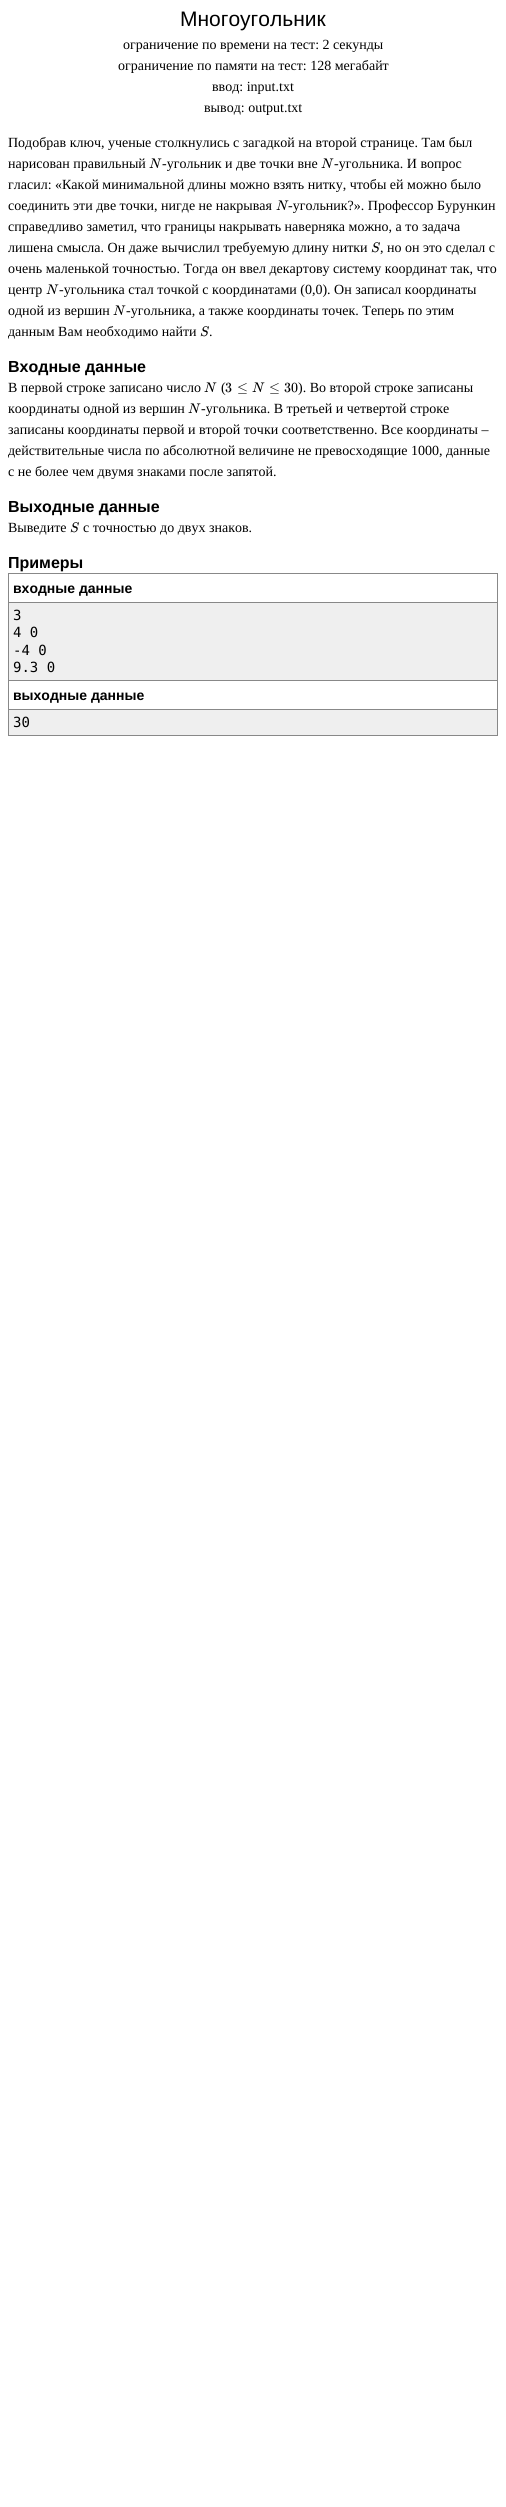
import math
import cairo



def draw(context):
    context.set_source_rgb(1, 1, 1)
    context.paint()
    context.rectangle(8.5, 573.5, 489, 107)
    context.set_source_rgb(136 / 255, 136 / 255, 136 / 255)
    context.set_line_width(1)
    context.stroke()
    context.rectangle(9, 602, 488, 1)
    context.fill()
    context.set_source_rgb(239 / 255, 239 / 255, 239 / 255)
    context.rectangle(9, 603, 488, 77)
    context.fill()
    context.rectangle(8.5, 680.5, 489, 55)
    context.set_source_rgb(136 / 255, 136 / 255, 136 / 255)
    context.stroke()
    context.rectangle(9, 709, 488, 1)
    context.fill()
    context.set_source_rgb(239 / 255, 239 / 255, 239 / 255)
    context.rectangle(9, 710, 488, 25)
    context.fill()
    context.select_font_face("Liberation Sans")
    context.set_font_size(21)
    context.set_source_rgb(0, 0, 0)
    context.move_to(180, 26)
    context.show_text("Многоугольник")
    context.select_font_face("Liberation Serif")
    context.set_font_size(14)
    context.move_to(123, 49)
    context.show_text("ограничение по времени на тест: 2 секунды")
    context.move_to(118, 70)
    context.show_text("ограничение по памяти на тест: 128 мегабайт")
    context.move_to(212, 91)
    context.show_text("ввод: input.txt")
    context.move_to(204, 112)
    context.show_text("вывод: output.txt")
    context.move_to(8, 147)
    context.show_text("Подобрав ключ, ученые столкнулись с загадкой на второй странице. Там был")
    context.move_to(8, 168)
    context.show_text("нарисован правильный")
    context.move_to(162, 168)
    context.show_text("-угольник и две точки вне")
    context.select_font_face("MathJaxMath", cairo.FontSlant.ITALIC)
    context.move_to(149, 168)
    context.show_text("N")
    context.select_font_face("Liberation Serif")
    context.move_to(334, 168)
    context.show_text("-угольника. И вопрос")
    context.select_font_face("MathJaxMath", cairo.FontSlant.ITALIC)
    context.move_to(321, 168)
    context.show_text("N")
    context.select_font_face("Liberation Serif")
    context.move_to(8, 189)
    context.show_text("гласил: «Какой минимальной длины можно взять нитку, чтобы ей можно было")
    context.move_to(8, 210)
    context.show_text("соединить эти две точки, нигде не накрывая")
    context.move_to(288, 210)
    context.show_text("-угольник?». Профессор Бурункин")
    context.select_font_face("MathJaxMath", cairo.FontSlant.ITALIC)
    context.move_to(276, 210)
    context.show_text("N")
    context.select_font_face("Liberation Serif")
    context.move_to(8, 231)
    context.show_text("справедливо заметил, что границы накрывать наверняка можно, а то задача")
    context.move_to(8, 252)
    context.show_text("лишена смысла. Он даже вычислил требуемую длину нитки")
    context.move_to(380, 252)
    context.show_text(", но он это сделал с")
    context.select_font_face("MathJaxMath", cairo.FontSlant.ITALIC)
    context.move_to(371, 252)
    context.show_text("S")
    context.select_font_face("Liberation Serif")
    context.move_to(8, 273)
    context.show_text("очень маленькой точностью. Тогда он ввел декартову систему координат так, что")
    context.move_to(8, 294)
    context.show_text("центр")
    context.select_font_face("MathJaxMath", cairo.FontSlant.ITALIC)
    context.move_to(46, 294)
    context.show_text("N")
    context.select_font_face("Liberation Serif")
    context.move_to(59, 294)
    context.show_text("-угольника стал точкой с координатами (0,0). Он записал координаты")
    context.move_to(8, 315)
    context.show_text("одной из вершин")
    context.select_font_face("MathJaxMath", cairo.FontSlant.ITALIC)
    context.move_to(113, 315)
    context.show_text("N")
    context.select_font_face("Liberation Serif")
    context.move_to(126, 315)
    context.show_text("-угольника, а также координаты точек. Теперь по этим")
    context.move_to(8, 336)
    context.show_text("данным Вам необходимо найти")
    context.select_font_face("MathJaxMath", cairo.FontSlant.ITALIC)
    context.move_to(200, 336)
    context.show_text("S")
    context.select_font_face("Liberation Serif")
    context.move_to(209, 336)
    context.show_text(".")
    context.select_font_face("Liberation Sans", cairo.FontSlant.NORMAL, cairo.FontWeight.BOLD)
    context.set_font_size(16)
    context.move_to(8, 372)
    context.show_text("Входные данные")
    context.select_font_face("Liberation Serif")
    context.set_font_size(14)
    context.move_to(8, 392)
    context.show_text("В первой строке записано число")
    context.select_font_face("MathJaxMath", cairo.FontSlant.ITALIC)
    context.move_to(204, 392)
    context.show_text("N")
    context.select_font_face("Liberation Serif")
    context.move_to(221, 392)
    context.show_text("(")
    context.select_font_face("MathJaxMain")
    context.move_to(225, 392)
    context.show_text("3")
    context.move_to(237, 392)
    context.show_text("≤")
    context.select_font_face("MathJaxMath", cairo.FontSlant.ITALIC)
    context.move_to(252, 392)
    context.show_text("N")
    context.select_font_face("MathJaxMain")
    context.move_to(269, 392)
    context.show_text("≤")
    context.move_to(284, 392)
    context.show_text("30")
    context.select_font_face("Liberation Serif")
    context.move_to(298, 392)
    context.show_text("). Во второй строке записаны")
    context.move_to(8, 413)
    context.show_text("координаты одной из вершин")
    context.move_to(201, 413)
    context.show_text("-угольника. В третьей и четвертой строке")
    context.select_font_face("MathJaxMath", cairo.FontSlant.ITALIC)
    context.move_to(188, 413)
    context.show_text("N")
    context.select_font_face("Liberation Serif")
    context.move_to(8, 434)
    context.show_text("записаны координаты первой и второй точки соответственно. Все координаты –")
    context.move_to(8, 455)
    context.show_text("действительные числа по абсолютной величине не превосходящие 1000, данные")
    context.move_to(8, 476)
    context.show_text("с не более чем двумя знаками после запятой.")
    context.select_font_face("Liberation Sans", cairo.FontSlant.NORMAL, cairo.FontWeight.BOLD)
    context.set_font_size(16)
    context.move_to(8, 512)
    context.show_text("Выходные данные")
    context.select_font_face("Liberation Serif")
    context.set_font_size(14)
    context.move_to(8, 532)
    context.show_text("Выведите")
    context.select_font_face("MathJaxMath", cairo.FontSlant.ITALIC)
    context.move_to(70, 532)
    context.show_text("S")
    context.select_font_face("Liberation Serif")
    context.move_to(83, 532)
    context.show_text("с точностью до двух знаков.")
    context.select_font_face("Liberation Sans", cairo.FontSlant.NORMAL, cairo.FontWeight.BOLD)
    context.set_font_size(16)
    context.move_to(8, 568)
    context.show_text("Примеры")
    context.set_font_size(14)
    context.move_to(13, 593)
    context.show_text("входные данные")
    context.select_font_face("DejaVu Sans Mono")
    context.move_to(13, 620)
    context.show_text("3")
    context.move_to(13, 637)
    context.show_text("4 0")
    context.move_to(13, 655)
    context.show_text("-4 0")
    context.move_to(13, 672)
    context.show_text("9.3 0")
    context.select_font_face("Liberation Sans", cairo.FontSlant.NORMAL, cairo.FontWeight.BOLD)
    context.move_to(13, 700)
    context.show_text("выходные данные")
    context.select_font_face("DejaVu Sans Mono")
    context.move_to(13, 727)
    context.show_text("30")


surface = cairo.ImageSurface(cairo.Format.RGB24, 506, 2507)
context = cairo.Context(surface)
options = cairo.FontOptions()
options.set_hint_metrics(cairo.HintMetrics.OFF)
options.set_hint_style(cairo.HintStyle.NONE)
context.set_font_options(options)
context.set_miter_limit(4)
draw(context)
surface.write_to_png("out.png")
